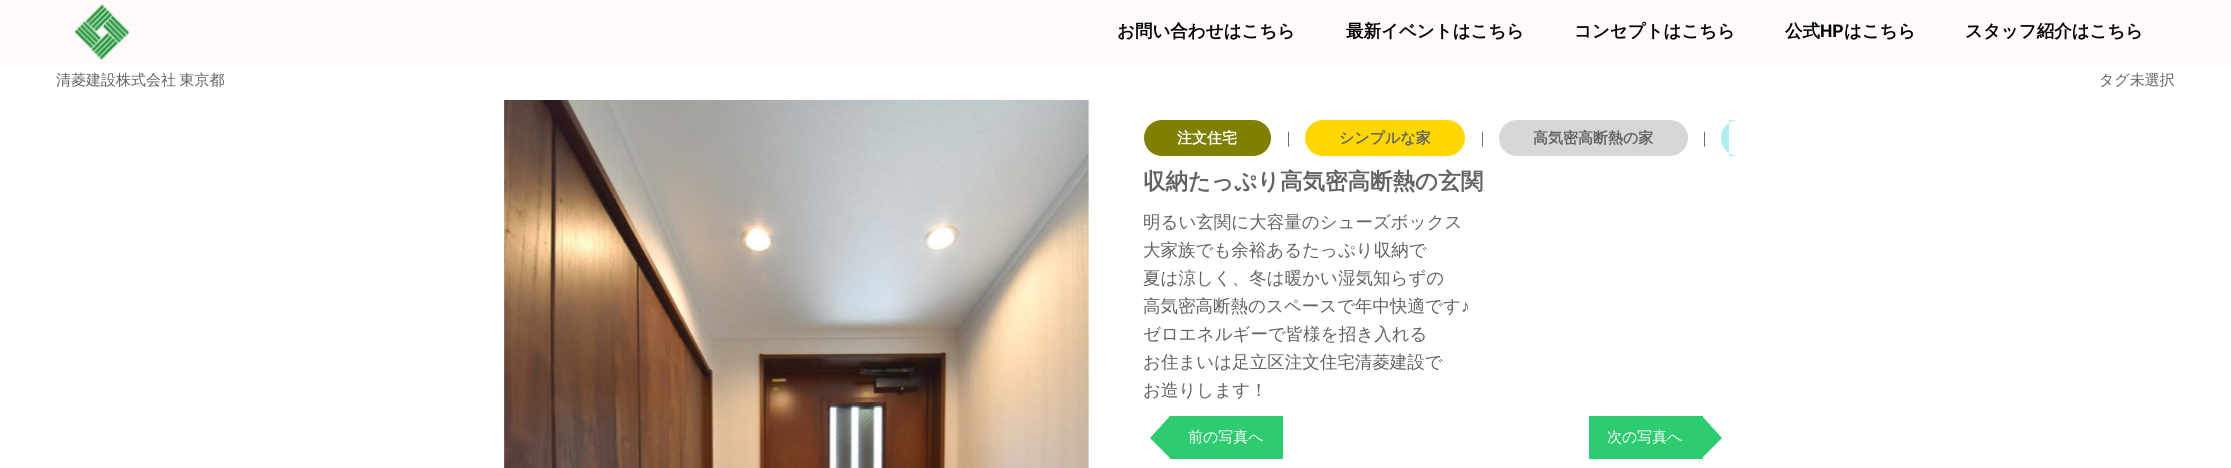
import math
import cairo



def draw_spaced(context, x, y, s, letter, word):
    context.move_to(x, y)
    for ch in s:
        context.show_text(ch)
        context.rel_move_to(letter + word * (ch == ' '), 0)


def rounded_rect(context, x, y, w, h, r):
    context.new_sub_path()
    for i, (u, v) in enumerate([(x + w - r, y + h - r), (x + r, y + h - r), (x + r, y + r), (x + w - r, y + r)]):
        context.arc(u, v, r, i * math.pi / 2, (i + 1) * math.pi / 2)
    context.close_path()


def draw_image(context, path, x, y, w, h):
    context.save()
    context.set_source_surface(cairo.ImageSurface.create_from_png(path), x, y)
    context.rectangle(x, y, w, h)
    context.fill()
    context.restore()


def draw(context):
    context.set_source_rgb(1, 1, 1)
    context.paint()
    context.set_source_rgb(1, 250 / 255, 250 / 255)
    context.rectangle(0, 0, 2231, 63)
    context.fill()
    draw_image(context, "images/1.png", 74, 4, 56, 56)
    draw_image(context, "images/2.png", 504, 100, 585, 368)
    context.set_source_rgb(128 / 255, 128 / 255, 0)
    rounded_rect(context, 1144, 120, 127, 36, 18)
    context.fill()
    context.set_source_rgb(1, 215 / 255, 0)
    rounded_rect(context, 1305, 120, 160, 36, 18)
    context.fill()
    context.set_source_rgb(214 / 255, 215 / 255, 215 / 255)
    rounded_rect(context, 1499, 120, 189, 36, 18)
    context.fill()
    context.set_source_rgb(175 / 255, 238 / 255, 238 / 255)
    context.new_path()
    context.move_to(1739, 120)
    context.line_to(1729, 120)
    context.line_to(1729, 156)
    context.line_to(1739, 156)
    context.curve_to(1729, 156, 1721, 148, 1721, 138)
    context.curve_to(1721, 128, 1729, 120, 1739, 120)
    context.close_path()
    context.fill()
    context.set_source_rgb(46 / 255, 204 / 255, 113 / 255)
    context.rectangle(1170, 416, 113, 43)
    context.fill()
    context.new_path()
    context.move_to(1170, 416)
    context.line_to(1170, 458)
    context.line_to(1150, 438)
    context.close_path()
    context.fill()
    context.rectangle(1589, 416, 114, 43)
    context.fill()
    context.new_path()
    context.move_to(1702, 458)
    context.line_to(1702, 416)
    context.line_to(1722, 438)
    context.close_path()
    context.fill()
    context.select_font_face("WenQuanYi Zen Hei", cairo.FontSlant.NORMAL, cairo.FontWeight.BOLD)
    context.set_font_size(17.5)
    context.set_source_rgb(0, 0, 0)
    context.move_to(1117, 37)
    context.show_text("お問い合わせはこちら")
    context.move_to(1346, 37)
    context.show_text("最新イベントはこちら")
    context.move_to(1574, 37)
    context.show_text("コンセプトはこちら")
    context.move_to(1785, 37)
    context.show_text("公式")
    context.select_font_face("Roboto", cairo.FontSlant.NORMAL, cairo.FontWeight.BOLD)
    context.move_to(1820, 37)
    context.show_text("HP")
    context.select_font_face("WenQuanYi Zen Hei", cairo.FontSlant.NORMAL, cairo.FontWeight.BOLD)
    context.move_to(1844, 37)
    context.show_text("はこちら")
    context.move_to(1965, 37)
    context.show_text("スタッフ紹介はこちら")
    context.select_font_face("WenQuanYi Zen Hei Medium")
    context.set_font_size(15)
    context.set_source_rgb(98 / 255, 98 / 255, 98 / 255)
    draw_spaced(context, 56, 85, "清菱建設株式会社 東京都", 0, -1)
    context.move_to(2099, 85)
    context.show_text("タグ未選択")
    context.select_font_face("WenQuanYi Zen Hei", cairo.FontSlant.NORMAL, cairo.FontWeight.BOLD)
    context.set_source_rgb(1, 1, 1)
    context.move_to(1177, 143)
    context.show_text("注文住宅")
    context.select_font_face("WenQuanYi Zen Hei Medium")
    context.set_source_rgb(98 / 255, 98 / 255, 98 / 255)
    context.move_to(1281, 143)
    context.show_text("｜")
    context.select_font_face("WenQuanYi Zen Hei", cairo.FontSlant.NORMAL, cairo.FontWeight.BOLD)
    context.move_to(1339, 143)
    context.show_text("シンプルな家")
    context.select_font_face("WenQuanYi Zen Hei Medium")
    context.move_to(1475, 143)
    context.show_text("｜")
    context.select_font_face("WenQuanYi Zen Hei", cairo.FontSlant.NORMAL, cairo.FontWeight.BOLD)
    context.move_to(1533, 143)
    context.show_text("高気密高断熱の家")
    context.select_font_face("WenQuanYi Zen Hei Medium")
    context.move_to(1697, 143)
    context.show_text("｜")
    context.select_font_face("WenQuanYi Zen Hei", cairo.FontSlant.NORMAL, cairo.FontWeight.BOLD)
    context.set_font_size(22.5)
    context.move_to(1143, 189)
    context.show_text("収納たっぷり高気密高断熱の玄関")
    context.select_font_face("WenQuanYi Zen Hei Medium")
    context.set_font_size(17.5)
    context.move_to(1143, 228)
    context.show_text("明るい玄関に大容量のシューズボックス")
    context.move_to(1143, 256)
    context.show_text("大家族でも余裕あるたっぷり収納で")
    context.move_to(1143, 284)
    context.show_text("夏は涼しく、冬は暖かい湿気知らずの")
    context.move_to(1143, 312)
    context.show_text("高気密高断熱のスペースで年中快適です")
    context.select_font_face("Liberation Sans")
    context.move_to(1461, 312)
    context.show_text("♪")
    context.select_font_face("WenQuanYi Zen Hei Medium")
    context.move_to(1143, 340)
    context.show_text("ゼロエネルギーで皆様を招き入れる")
    context.move_to(1143, 368)
    context.show_text("お住まいは足立区注文住宅清菱建設で")
    context.move_to(1143, 396)
    context.show_text("お造りします！")
    context.set_font_size(15)
    context.set_source_rgb(1, 1, 1)
    context.move_to(1188, 442)
    context.show_text("前の写真へ")
    context.move_to(1607, 442)
    context.show_text("次の写真へ")


surface = cairo.ImageSurface(cairo.Format.RGB24, 2231, 468)
context = cairo.Context(surface)
options = cairo.FontOptions()
options.set_hint_metrics(cairo.HintMetrics.OFF)
options.set_hint_style(cairo.HintStyle.NONE)
context.set_font_options(options)
context.set_miter_limit(4)
draw(context)
surface.write_to_png("out.png")
